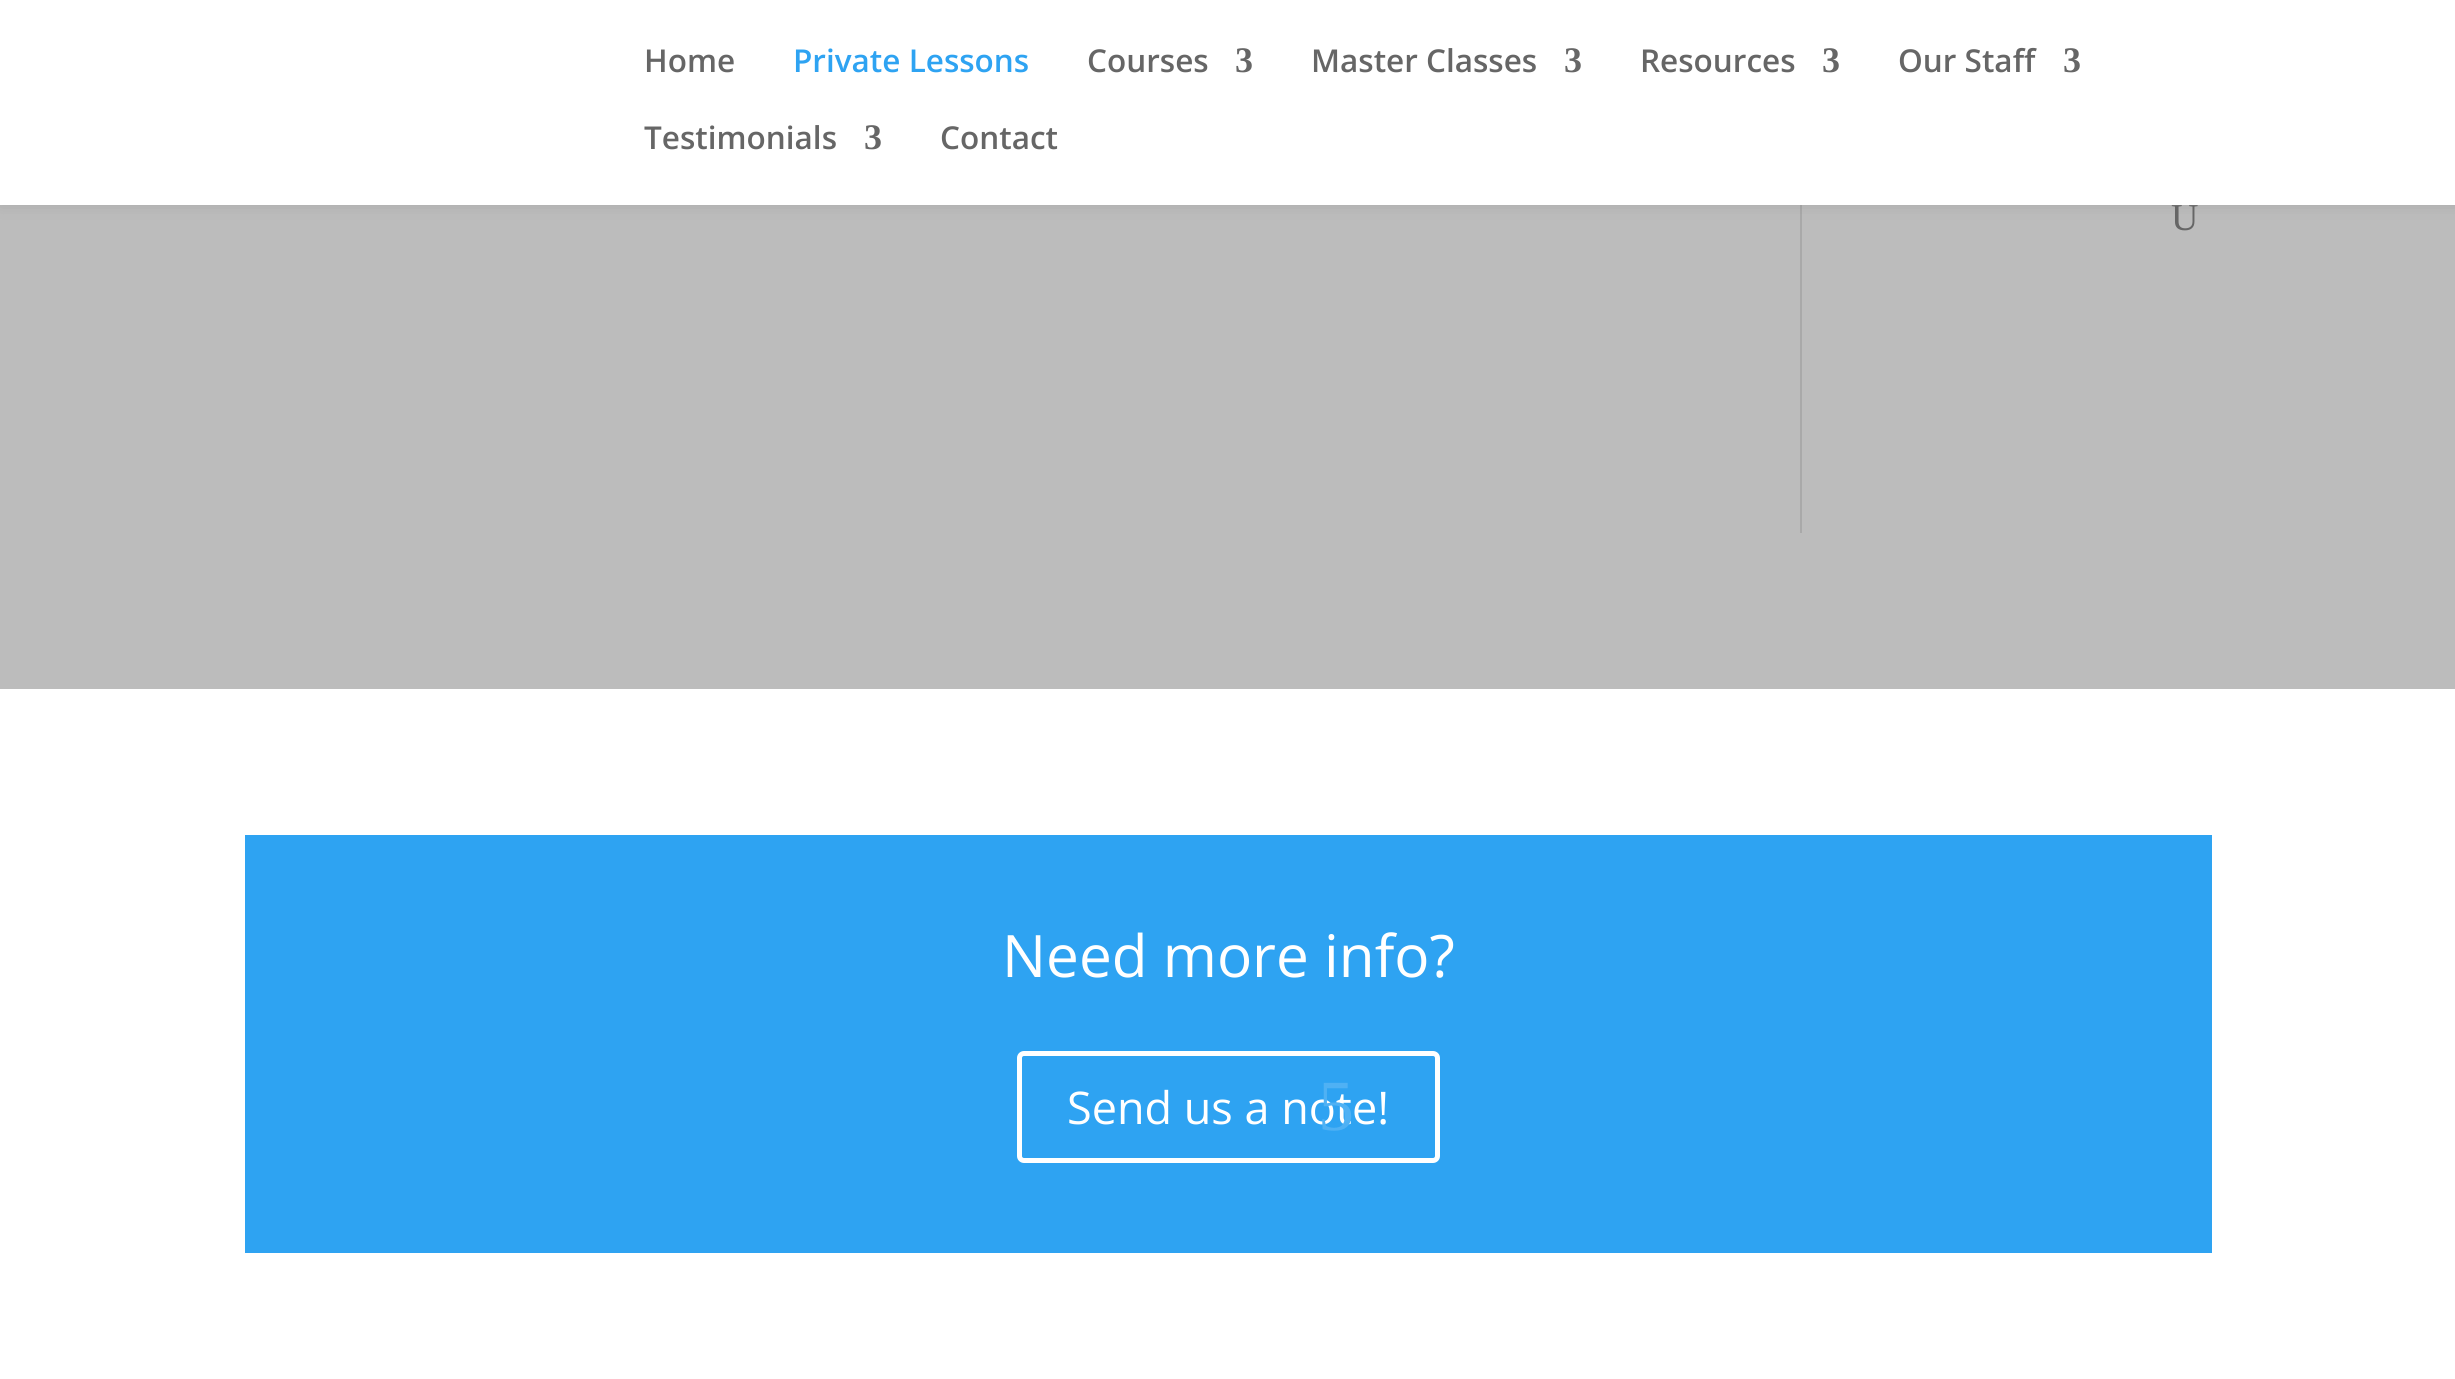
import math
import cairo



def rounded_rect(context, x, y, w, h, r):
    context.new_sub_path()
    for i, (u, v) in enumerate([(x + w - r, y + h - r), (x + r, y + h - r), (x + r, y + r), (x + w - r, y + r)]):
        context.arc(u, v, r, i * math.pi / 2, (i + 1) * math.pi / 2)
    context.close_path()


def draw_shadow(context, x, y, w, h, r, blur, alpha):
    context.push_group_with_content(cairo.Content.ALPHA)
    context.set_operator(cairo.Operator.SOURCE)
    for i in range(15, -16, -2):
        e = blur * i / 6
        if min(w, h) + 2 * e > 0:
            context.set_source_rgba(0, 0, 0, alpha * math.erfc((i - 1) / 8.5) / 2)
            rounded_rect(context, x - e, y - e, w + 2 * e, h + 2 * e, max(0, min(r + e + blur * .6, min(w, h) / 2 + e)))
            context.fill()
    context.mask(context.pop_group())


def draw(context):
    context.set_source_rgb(1, 1, 1)
    context.paint()
    context.set_source_rgb(188 / 255, 188 / 255, 188 / 255)
    context.rectangle(0, 205, 2455, 484)
    context.fill()
    context.set_source_rgb(169 / 255, 169 / 255, 169 / 255)
    context.rectangle(1800, 205, 2, 328)
    context.fill()
    context.set_source_rgb(0, 0, 0)
    draw_shadow(context, 0, 0, 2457, 205, 0, 8, 0.1)
    context.set_source_rgb(1, 1, 1)
    context.rectangle(0, 0, 2455, 205)
    context.fill()
    context.set_source_rgb(46 / 255, 163 / 255, 242 / 255)
    context.rectangle(245, 835, 1967, 418)
    context.fill()
    rounded_rect(context, 1019.5, 1053.5, 418, 107, 4.5)
    context.set_source_rgb(1, 1, 1)
    context.set_line_width(5)
    context.stroke()
    context.select_font_face("Open Sans SemiBold")
    context.set_font_size(31.5)
    context.set_source_rgb(102 / 255, 102 / 255, 102 / 255)
    context.move_to(644, 72)
    context.show_text("Home")
    context.set_source_rgb(46 / 255, 163 / 255, 242 / 255)
    context.move_to(793, 72)
    context.show_text("Private Lessons")
    context.set_source_rgb(102 / 255, 102 / 255, 102 / 255)
    context.move_to(1087, 72)
    context.show_text("Courses")
    context.select_font_face("Liberation Serif", cairo.FontSlant.NORMAL, cairo.FontWeight.BOLD)
    context.set_font_size(36)
    context.move_to(1235, 72)
    context.show_text("3")
    context.select_font_face("Open Sans SemiBold")
    context.set_font_size(31.5)
    context.move_to(1311, 72)
    context.show_text("Master Classes")
    context.select_font_face("Liberation Serif", cairo.FontSlant.NORMAL, cairo.FontWeight.BOLD)
    context.set_font_size(36)
    context.move_to(1564, 72)
    context.show_text("3")
    context.select_font_face("Open Sans SemiBold")
    context.set_font_size(31.5)
    context.move_to(1640, 72)
    context.show_text("Resources")
    context.select_font_face("Liberation Serif", cairo.FontSlant.NORMAL, cairo.FontWeight.BOLD)
    context.set_font_size(36)
    context.move_to(1822, 72)
    context.show_text("3")
    context.select_font_face("Open Sans SemiBold")
    context.set_font_size(31.5)
    context.move_to(1898, 72)
    context.show_text("Our Staff")
    context.select_font_face("Liberation Serif", cairo.FontSlant.NORMAL, cairo.FontWeight.BOLD)
    context.set_font_size(36)
    context.move_to(2063, 72)
    context.show_text("3")
    context.select_font_face("Open Sans SemiBold")
    context.set_font_size(31.5)
    context.move_to(644, 149)
    context.show_text("Testimonials")
    context.select_font_face("Liberation Serif", cairo.FontSlant.NORMAL, cairo.FontWeight.BOLD)
    context.set_font_size(36)
    context.move_to(864, 149)
    context.show_text("3")
    context.select_font_face("Open Sans SemiBold")
    context.set_font_size(31.5)
    context.move_to(940, 149)
    context.show_text("Contact")
    context.select_font_face("Liberation Serif")
    context.set_font_size(38)
    context.move_to(2171, 230)
    context.show_text("U")
    context.select_font_face("Open Sans")
    context.set_font_size(58.5)
    context.set_source_rgb(1, 1, 1)
    context.move_to(1002, 977)
    context.show_text("Need more info?")
    context.set_font_size(45)
    context.move_to(1067, 1124)
    context.show_text("Send us a note!")
    context.select_font_face("Liberation Serif")
    context.set_font_size(72)
    context.set_source_rgb(79 / 255, 177 / 255, 244 / 255)
    context.move_to(1318, 1130)
    context.show_text("5")


surface = cairo.ImageSurface(cairo.Format.RGB24, 2455, 1379)
context = cairo.Context(surface)
options = cairo.FontOptions()
options.set_hint_metrics(cairo.HintMetrics.OFF)
options.set_hint_style(cairo.HintStyle.NONE)
context.set_font_options(options)
context.set_miter_limit(4)
draw(context)
surface.write_to_png("out.png")
